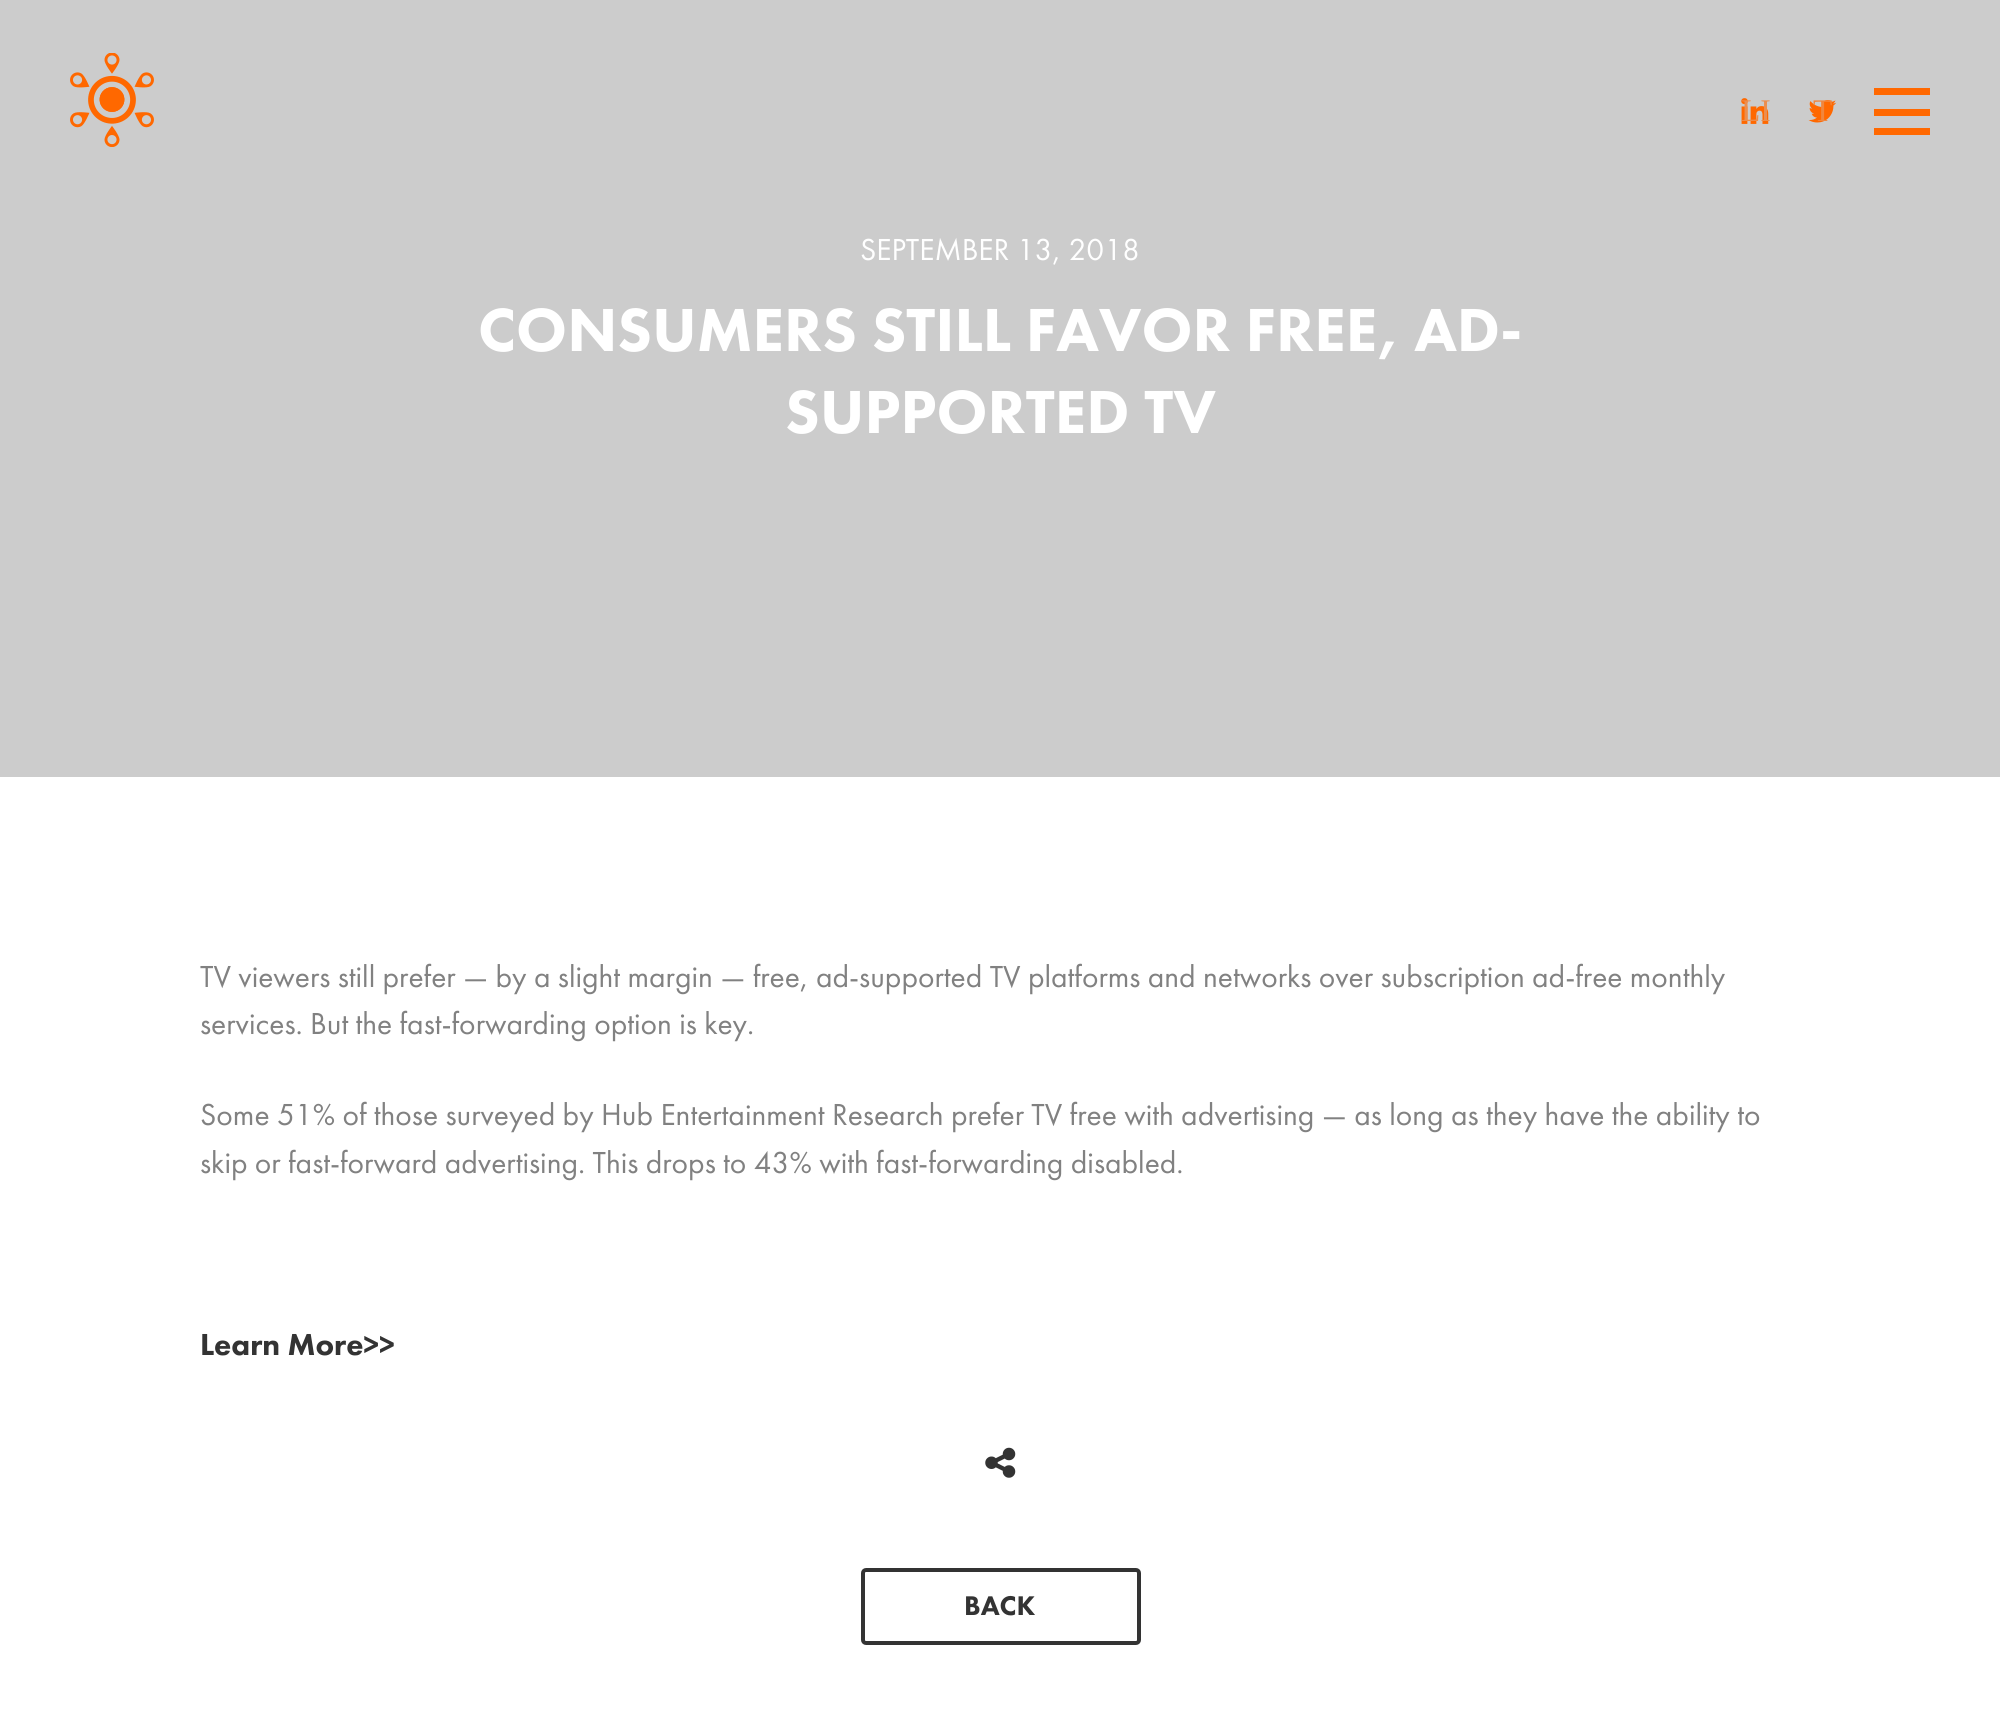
import math
import cairo



def rounded_rect(context, x, y, w, h, r):
    context.new_sub_path()
    for i, (u, v) in enumerate([(x + w - r, y + h - r), (x + r, y + h - r), (x + r, y + r), (x + w - r, y + r)]):
        context.arc(u, v, r, i * math.pi / 2, (i + 1) * math.pi / 2)
    context.close_path()


def draw_image(context, path, x, y, w, h):
    context.save()
    context.set_source_surface(cairo.ImageSurface.create_from_png(path), x, y)
    context.rectangle(x, y, w, h)
    context.fill()
    context.restore()


def draw(context):
    context.set_source_rgb(1, 1, 1)
    context.paint()
    context.set_source_rgb(204 / 255, 204 / 255, 204 / 255)
    context.rectangle(0, 0, 2000, 777)
    context.fill()
    draw_image(context, "images/1.png", 70, 53, 84, 94)
    draw_image(context, "images/2.png", 1741, 98, 28, 26)
    draw_image(context, "images/3.png", 1808, 100, 29, 23)
    context.set_source_rgb(1, 104 / 255, 0)
    context.rectangle(1874, 88, 56, 7)
    context.fill()
    context.rectangle(1874, 109, 56, 7)
    context.fill()
    context.rectangle(1874, 128, 56, 7)
    context.fill()
    draw_image(context, "images/4.png", 985, 1447, 31, 31)
    rounded_rect(context, 863, 1570, 276, 73, 3)
    context.set_source_rgb(51 / 255, 51 / 255, 51 / 255)
    context.set_line_width(4)
    context.stroke()
    context.select_font_face("Liberation Serif")
    context.set_font_size(31.5)
    context.set_source_rgb(236 / 255, 142 / 255, 78 / 255)
    context.move_to(1741, 121)
    context.show_text("LI")
    context.set_source_rgb(240 / 255, 134 / 255, 62 / 255)
    context.move_to(1813, 121)
    context.show_text("T")
    context.select_font_face("Futura PT")
    context.set_source_rgb(1, 1, 1)
    context.move_to(860, 260)
    context.show_text("SEPTEMBER 13, 2018")
    context.select_font_face("Futura PT Black")
    context.set_font_size(63)
    context.move_to(478, 351)
    context.show_text("CONSUMERS STILL FAVOR FREE, AD-")
    context.move_to(785, 433)
    context.show_text("SUPPORTED TV")
    context.select_font_face("Futura PT")
    context.set_font_size(31.5)
    context.set_source_rgb(129 / 255, 129 / 255, 129 / 255)
    context.move_to(200, 987)
    context.show_text("TV viewers still prefer — by a slight margin — free, ad-supported TV platforms and networks over subscription ad-free monthly")
    context.move_to(200, 1034)
    context.show_text("services. But the fast-forwarding option is key.")
    context.move_to(200, 1125)
    context.show_text("Some 51% of those surveyed by Hub Entertainment Research prefer TV free with advertising — as long as they have the ability to")
    context.move_to(200, 1173)
    context.show_text("skip or fast-forward advertising. This drops to 43% with fast-forwarding disabled.")
    context.select_font_face("Futura PT Black")
    context.set_source_rgb(51 / 255, 51 / 255, 51 / 255)
    context.move_to(200, 1355)
    context.show_text("Learn More>>")
    context.set_font_size(28)
    context.move_to(964, 1615)
    context.show_text("BACK")


surface = cairo.ImageSurface(cairo.Format.RGB24, 2000, 1724)
context = cairo.Context(surface)
options = cairo.FontOptions()
options.set_hint_metrics(cairo.HintMetrics.OFF)
options.set_hint_style(cairo.HintStyle.NONE)
context.set_font_options(options)
context.set_miter_limit(4)
draw(context)
surface.write_to_png("out.png")
